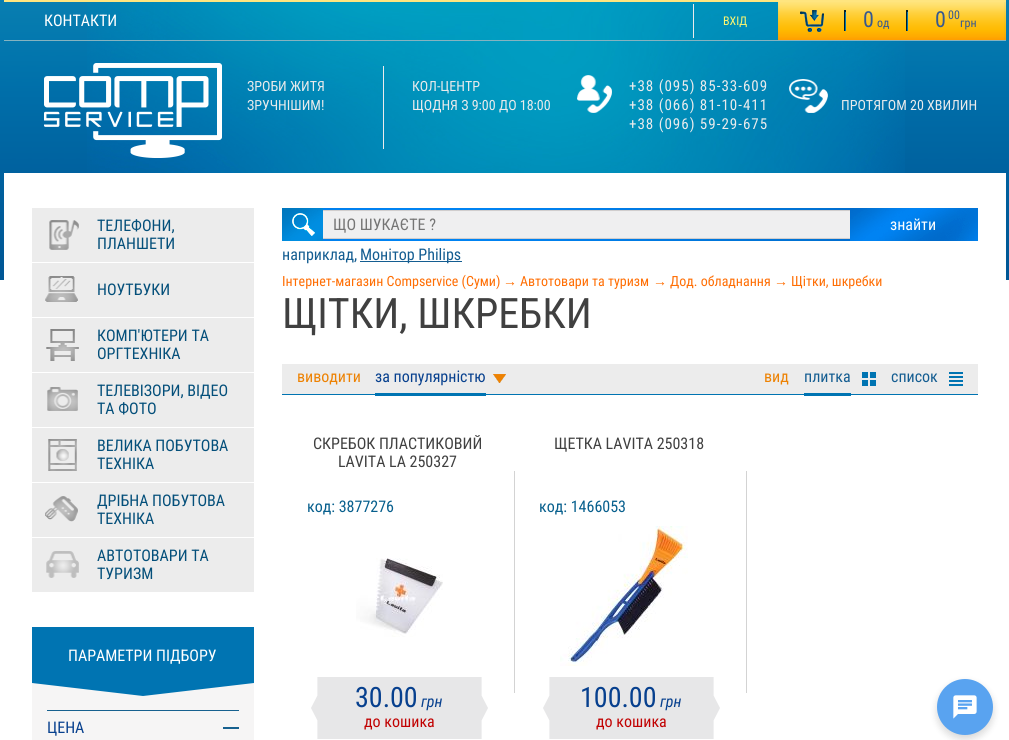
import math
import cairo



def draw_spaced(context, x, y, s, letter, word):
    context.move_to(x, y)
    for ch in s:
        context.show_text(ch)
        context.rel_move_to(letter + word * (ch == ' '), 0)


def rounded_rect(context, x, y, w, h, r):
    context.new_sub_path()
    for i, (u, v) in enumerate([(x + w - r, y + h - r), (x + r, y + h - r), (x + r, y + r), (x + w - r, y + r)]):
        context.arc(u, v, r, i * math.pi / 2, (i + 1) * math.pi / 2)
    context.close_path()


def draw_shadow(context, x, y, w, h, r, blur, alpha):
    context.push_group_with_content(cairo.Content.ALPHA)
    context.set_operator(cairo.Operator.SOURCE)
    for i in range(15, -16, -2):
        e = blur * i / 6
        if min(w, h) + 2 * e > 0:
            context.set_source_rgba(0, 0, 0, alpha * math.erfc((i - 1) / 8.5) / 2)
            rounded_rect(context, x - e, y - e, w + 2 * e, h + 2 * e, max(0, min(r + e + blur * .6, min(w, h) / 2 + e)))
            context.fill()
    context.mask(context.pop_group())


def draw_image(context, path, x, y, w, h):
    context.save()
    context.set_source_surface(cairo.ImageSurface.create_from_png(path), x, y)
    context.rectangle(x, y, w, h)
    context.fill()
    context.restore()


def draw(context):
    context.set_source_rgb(1, 1, 1)
    context.paint()
    draw_image(context, "images/1.png", 0, 0, 1009, 280)
    draw_image(context, "images/2.png", 4, 2, 1002, 171)
    draw_image(context, "images/3.png", 87, 2, 818, 171)
    context.set_source_rgb(1, 229 / 255, 127 / 255)
    context.rectangle(4, 0, 1002, 2)
    context.fill()
    context.set_source_rgb(133 / 255, 179 / 255, 192 / 255)
    context.rectangle(4, 40, 1002, 1)
    context.fill()
    context.set_source_rgb(235 / 255, 235 / 255, 236 / 255)
    context.rectangle(693, 4, 1, 34)
    context.fill()
    draw_image(context, "images/4.png", 778, 2, 228, 38)
    draw_image(context, "images/5.png", 44, 63, 178, 95)
    context.rectangle(383, 66, 1, 83)
    context.fill()
    draw_image(context, "images/6.png", 577, 75, 35, 38)
    draw_image(context, "images/7.png", 789, 79, 39, 34)
    context.set_source_rgb(1, 1, 1)
    context.rectangle(4, 173, 1002, 107)
    context.fill()
    draw_image(context, "images/8.png", 282, 208, 41, 33)
    draw_image(context, "images/9.png", 323, 208, 527, 33)
    draw_image(context, "images/10.png", 850, 208, 128, 33)
    context.set_source_rgb(20 / 255, 93 / 255, 145 / 255)
    context.rectangle(360, 261, 102, 1)
    context.fill()
    context.set_source_rgb(236 / 255, 236 / 255, 236 / 255)
    context.rectangle(32, 208, 222, 54)
    context.fill()
    draw_image(context, "images/11.png", 49, 220, 30, 30)
    context.rectangle(32, 263, 222, 54)
    context.fill()
    draw_image(context, "images/12.png", 45, 276, 33, 26)
    context.rectangle(32, 318, 222, 54)
    context.fill()
    draw_image(context, "images/13.png", 46, 329, 33, 32)
    context.rectangle(32, 373, 222, 54)
    context.fill()
    draw_image(context, "images/14.png", 47, 387, 31, 24)
    context.rectangle(32, 428, 222, 54)
    context.fill()
    draw_image(context, "images/15.png", 48, 439, 29, 32)
    context.rectangle(32, 483, 222, 54)
    context.fill()
    draw_image(context, "images/16.png", 45, 496, 33, 26)
    context.rectangle(32, 538, 222, 54)
    context.fill()
    draw_image(context, "images/17.png", 46, 551, 33, 27)
    context.set_source_rgb(246 / 255, 245 / 255, 245 / 255)
    context.rectangle(32, 683, 222, 57)
    context.fill()
    draw_image(context, "images/18.png", 32, 627, 222, 69)
    context.set_source_rgb(23 / 255, 97 / 255, 143 / 255)
    context.rectangle(223, 727, 16, 2)
    context.fill()
    context.rectangle(47, 710, 192, 1)
    context.fill()
    context.set_source_rgb(236 / 255, 236 / 255, 236 / 255)
    context.rectangle(282, 364, 696, 30)
    context.fill()
    context.set_source_rgb(0, 116 / 255, 178 / 255)
    context.rectangle(282, 394, 696, 1)
    context.fill()
    draw_image(context, "images/19.png", 493, 374, 13, 9)
    context.rectangle(375, 393, 111, 3)
    context.fill()
    draw_image(context, "images/20.png", 862, 372, 14, 14)
    context.rectangle(804, 393, 47, 3)
    context.fill()
    draw_image(context, "images/21.png", 949, 372, 14, 14)
    context.set_source_rgb(211 / 255, 211 / 255, 211 / 255)
    context.rectangle(514, 471, 1, 222)
    context.fill()
    draw_image(context, "images/22.png", 356, 558, 87, 79)
    draw_image(context, "images/23.png", 311, 677, 177, 62)
    context.rectangle(746, 471, 1, 222)
    context.fill()
    draw_image(context, "images/24.png", 560, 526, 128, 140)
    draw_image(context, "images/23.png", 543, 677, 177, 62)
    context.set_source_rgb(0, 0, 0)
    draw_shadow(context, 937, 683, 56, 56, 28, 4, 0.16)
    context.set_source_rgb(89 / 255, 163 / 255, 240 / 255)
    context.arc(965, 707, 28, 0, 2 * math.pi)
    context.fill()
    draw_image(context, "images/25.png", 953, 695, 24, 24)
    context.select_font_face("Roboto Condensed")
    context.set_font_size(16)
    context.set_source_rgb(1, 1, 1)
    context.move_to(44, 26)
    context.show_text("КОНТАКТИ")
    context.set_font_size(12)
    context.set_source_rgb(254 / 255, 246 / 255, 112 / 255)
    context.move_to(723, 25)
    context.show_text("ВХІД")
    context.set_font_size(22)
    context.set_source_rgb(54 / 255, 88 / 255, 144 / 255)
    context.move_to(863, 27)
    context.show_text("0")
    context.set_font_size(12)
    context.move_to(877, 27)
    context.show_text("од")
    context.set_font_size(22)
    context.move_to(935, 27)
    context.show_text("0")
    context.set_font_size(12)
    context.move_to(948, 19)
    context.show_text("00")
    context.move_to(960, 27)
    context.show_text("грн")
    context.set_font_size(14)
    context.set_source_rgb(234 / 255, 235 / 255, 236 / 255)
    context.move_to(247, 91)
    context.show_text("ЗРОБИ ЖИТЯ")
    context.move_to(247, 110)
    context.show_text("ЗРУЧНІШИМ!")
    context.move_to(412, 91)
    context.show_text("КОЛ-ЦЕНТР")
    context.move_to(412, 110)
    context.show_text("ЩОДНЯ З 9:00 ДО 18:00")
    context.set_font_size(15)
    draw_spaced(context, 629, 91, "+38 (095) 85-33-609", 1, 0)
    draw_spaced(context, 629, 110, "+38 (066) 81-10-411", 1, 0)
    draw_spaced(context, 629, 129, "+38 (096) 59-29-675", 1, 0)
    context.set_font_size(14)
    context.move_to(841, 110)
    context.show_text("ПРОТЯГОМ 20 ХВИЛИН")
    context.set_font_size(16)
    context.set_source_rgb(117 / 255, 117 / 255, 117 / 255)
    context.move_to(333, 230)
    context.show_text("ЩО ШУКАЄТЕ ?")
    context.set_source_rgb(1, 1, 1)
    context.move_to(890, 230)
    context.show_text("знайти")
    context.set_source_rgb(20 / 255, 93 / 255, 145 / 255)
    context.move_to(282, 260)
    context.show_text("наприклад,")
    context.move_to(360, 260)
    context.show_text("Монітор Philips")
    context.set_source_rgb(4 / 255, 79 / 255, 122 / 255)
    context.move_to(97, 231)
    context.show_text("ТЕЛЕФОНИ,")
    context.move_to(97, 249)
    context.show_text("ПЛАНШЕТИ")
    context.move_to(97, 295)
    context.show_text("НОУТБУКИ")
    context.move_to(97, 341)
    context.show_text("КОМП'ЮТЕРИ ТА")
    context.move_to(97, 359)
    context.show_text("ОРГТЕХНІКА")
    context.move_to(97, 396)
    context.show_text("ТЕЛЕВІЗОРИ, ВІДЕО")
    context.move_to(97, 414)
    context.show_text("ТА ФОТО")
    context.move_to(97, 451)
    context.show_text("ВЕЛИКА ПОБУТОВА")
    context.move_to(97, 469)
    context.show_text("ТЕХНІКА")
    context.move_to(97, 506)
    context.show_text("ДРІБНА ПОБУТОВА")
    context.move_to(97, 524)
    context.show_text("ТЕХНІКА")
    context.move_to(97, 561)
    context.show_text("АВТОТОВАРИ ТА")
    context.move_to(97, 579)
    context.show_text("ТУРИЗМ")
    context.set_source_rgb(1, 1, 1)
    context.move_to(68, 661)
    context.show_text("ПАРАМЕТРИ ПІДБОРУ")
    context.set_source_rgb(7 / 255, 64 / 255, 142 / 255)
    context.move_to(47, 733)
    context.show_text("ЦЕНА")
    context.set_font_size(14)
    context.set_source_rgb(1, 110 / 255, 4 / 255)
    context.move_to(282, 286)
    context.show_text("Інтернет-магазин Compservice (Суми)")
    context.select_font_face("Liberation Sans")
    context.move_to(503, 286)
    context.show_text("→")
    context.select_font_face("Roboto Condensed")
    context.move_to(520, 286)
    context.show_text("Автотовари та туризм")
    context.select_font_face("Liberation Sans")
    context.move_to(653, 286)
    context.show_text("→")
    context.select_font_face("Roboto Condensed")
    context.move_to(670, 286)
    context.show_text("Дод. обладнання")
    context.select_font_face("Liberation Sans")
    context.move_to(774, 286)
    context.show_text("→")
    context.select_font_face("Roboto Condensed")
    context.move_to(791, 286)
    context.show_text("Щітки, шкребки")
    context.set_font_size(42)
    context.set_source_rgb(64 / 255, 64 / 255, 64 / 255)
    context.move_to(282, 328)
    context.show_text("ЩІТКИ, ШКРЕБКИ")
    context.set_font_size(16)
    context.set_source_rgb(237 / 255, 130 / 255, 3 / 255)
    context.move_to(297, 382)
    context.show_text("виводити")
    context.set_source_rgb(7 / 255, 64 / 255, 142 / 255)
    context.move_to(375, 382)
    context.show_text("за популярністю")
    context.set_source_rgb(237 / 255, 130 / 255, 3 / 255)
    context.move_to(764, 382)
    context.show_text("вид")
    context.set_source_rgb(20 / 255, 93 / 255, 145 / 255)
    context.move_to(804, 382)
    context.show_text("плитка")
    context.move_to(891, 382)
    context.show_text("список")
    context.save()
    context.rectangle(307, 435, 182, 62)
    context.clip()
    context.set_source_rgb(64 / 255, 64 / 255, 64 / 255)
    context.move_to(313, 449)
    context.show_text("СКРЕБОК ПЛАСТИКОВИЙ")
    context.restore()
    context.set_source_rgb(64 / 255, 64 / 255, 64 / 255)
    context.move_to(338, 467)
    context.show_text("LAVITA LA 250327")
    context.set_source_rgb(7 / 255, 95 / 255, 141 / 255)
    context.move_to(307, 512)
    context.show_text("код: 3877276")
    context.set_font_size(28)
    context.set_source_rgb(7 / 255, 64 / 255, 142 / 255)
    context.move_to(355, 707)
    context.show_text("30.00")
    context.select_font_face("Roboto Condensed", cairo.FontSlant.ITALIC)
    context.set_font_size(16)
    context.move_to(421, 707)
    context.show_text("грн")
    context.select_font_face("Roboto Condensed")
    context.set_source_rgb(193 / 255, 2 / 255, 2 / 255)
    context.move_to(364, 727)
    context.show_text("до кошика")
    context.set_source_rgb(64 / 255, 64 / 255, 64 / 255)
    context.move_to(554, 449)
    context.show_text("ЩЕТКА LAVITA 250318")
    context.set_source_rgb(7 / 255, 95 / 255, 141 / 255)
    context.move_to(539, 512)
    context.show_text("код: 1466053")
    context.set_font_size(28)
    context.set_source_rgb(7 / 255, 64 / 255, 142 / 255)
    context.move_to(580, 707)
    context.show_text("100.00")
    context.select_font_face("Roboto Condensed", cairo.FontSlant.ITALIC)
    context.set_font_size(16)
    context.move_to(660, 707)
    context.show_text("грн")
    context.select_font_face("Roboto Condensed")
    context.set_source_rgb(193 / 255, 2 / 255, 2 / 255)
    context.move_to(596, 727)
    context.show_text("до кошика")


surface = cairo.ImageSurface(cairo.Format.RGB24, 1009, 740)
context = cairo.Context(surface)
options = cairo.FontOptions()
options.set_hint_metrics(cairo.HintMetrics.OFF)
options.set_hint_style(cairo.HintStyle.NONE)
context.set_font_options(options)
context.set_miter_limit(4)
draw(context)
surface.write_to_png("out.png")
